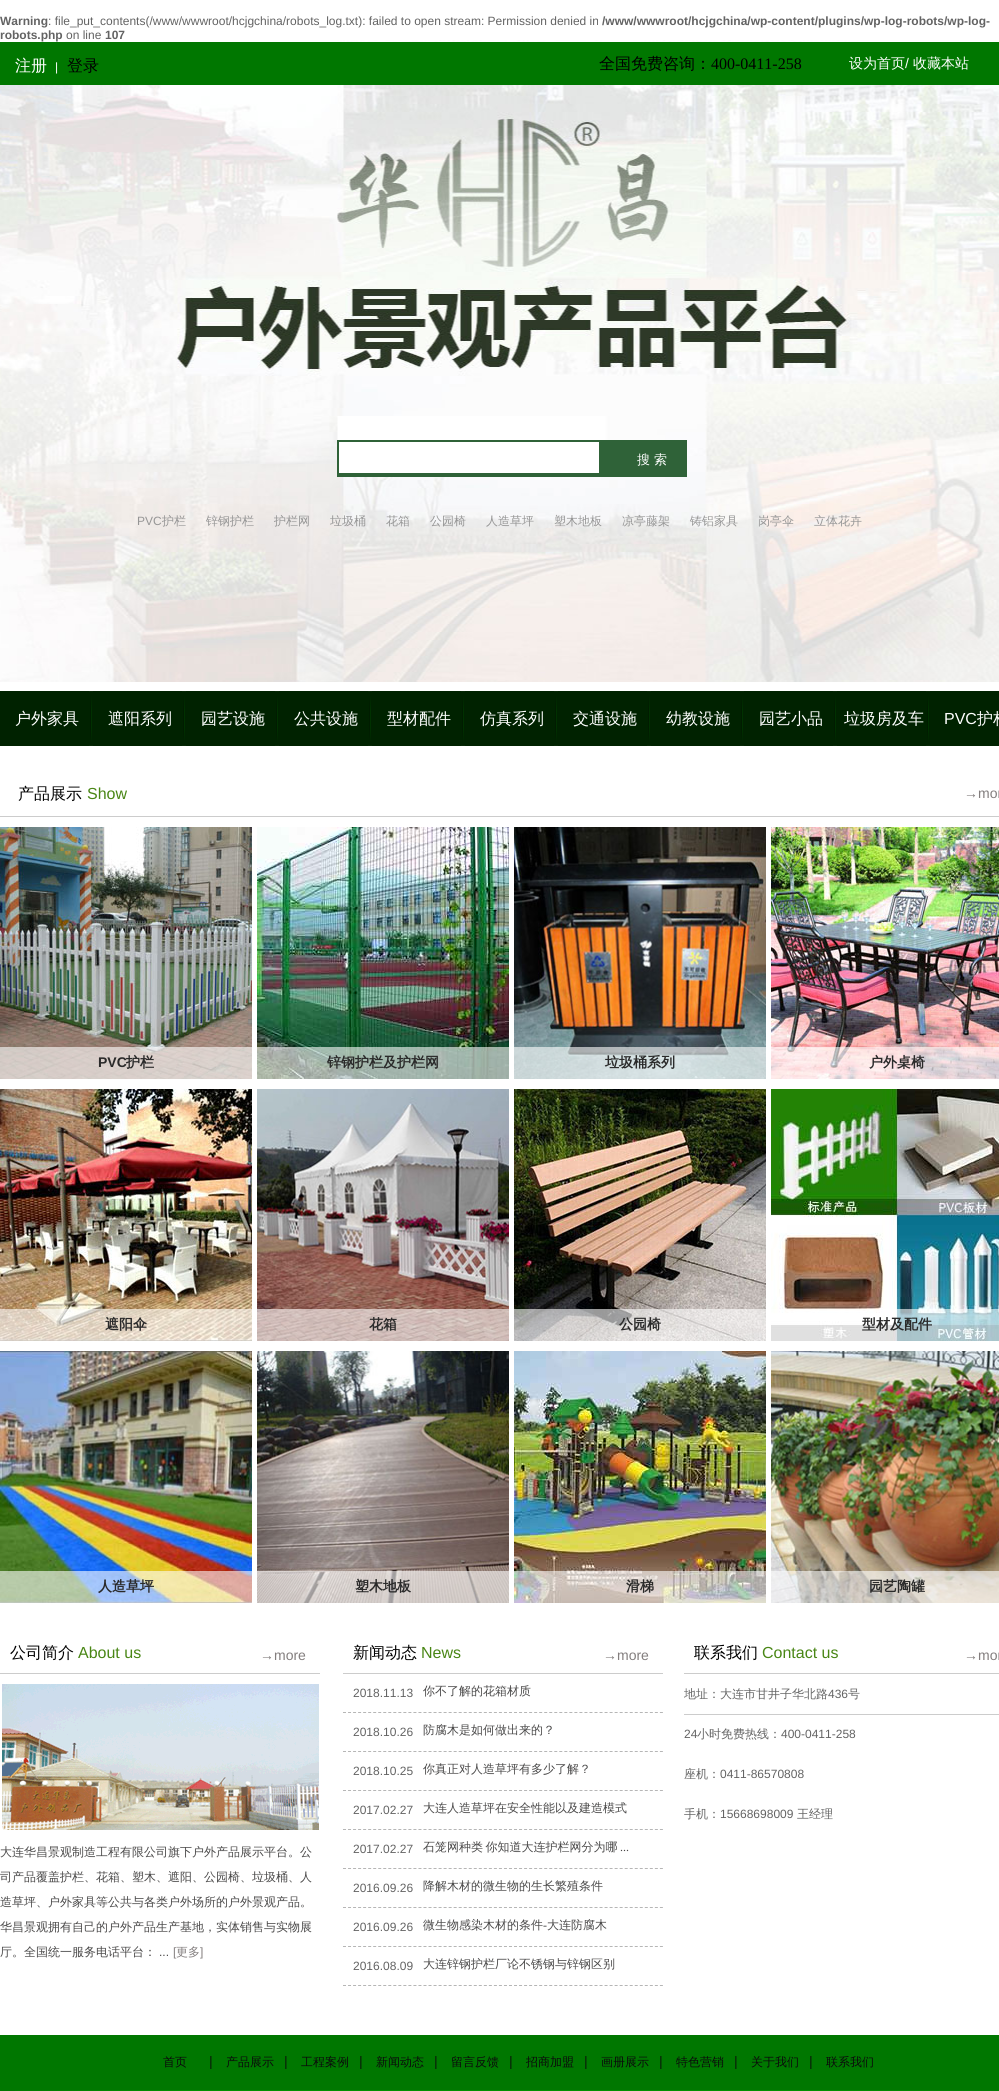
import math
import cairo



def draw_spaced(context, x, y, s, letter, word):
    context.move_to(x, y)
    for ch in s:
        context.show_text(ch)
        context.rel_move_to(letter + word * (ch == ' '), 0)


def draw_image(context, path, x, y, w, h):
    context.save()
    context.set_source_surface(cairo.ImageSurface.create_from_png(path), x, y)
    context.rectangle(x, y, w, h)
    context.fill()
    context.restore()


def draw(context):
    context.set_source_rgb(1, 1, 1)
    context.paint()
    draw_image(context, "images/1.png", 0, 40, 999, 642)
    context.set_source_rgb(0, 119 / 255, 0)
    context.rectangle(0, 42, 999, 43)
    context.fill()
    context.set_source_rgb(47 / 255, 98 / 255, 56 / 255)
    context.rectangle(337, 440, 350, 37)
    context.fill()
    context.set_source_rgb(1, 1, 1)
    context.rectangle(339, 442, 260, 31)
    context.fill()
    context.set_source_rgb(0, 34 / 255, 0)
    context.rectangle(0, 691, 999, 55)
    context.fill()
    draw_image(context, "images/2.png", 89, 691, 4, 55)
    draw_image(context, "images/2.png", 182, 691, 4, 55)
    draw_image(context, "images/2.png", 275, 691, 4, 55)
    draw_image(context, "images/2.png", 368, 691, 4, 55)
    draw_image(context, "images/2.png", 461, 691, 4, 55)
    draw_image(context, "images/2.png", 554, 691, 4, 55)
    draw_image(context, "images/2.png", 647, 691, 4, 55)
    draw_image(context, "images/2.png", 740, 691, 4, 55)
    draw_image(context, "images/2.png", 833, 691, 4, 55)
    draw_image(context, "images/2.png", 926, 691, 4, 55)
    context.set_source_rgb(204 / 255, 204 / 255, 204 / 255)
    context.rectangle(0, 816, 999, 1)
    context.fill()
    draw_image(context, "images/3.png", 0, 827, 252, 252)
    context.set_source_rgba(1, 1, 1, 0.6)
    context.rectangle(0, 1047, 252, 32)
    context.fill()
    draw_image(context, "images/4.png", 257, 827, 252, 252)
    context.rectangle(257, 1047, 252, 32)
    context.fill()
    draw_image(context, "images/5.png", 514, 827, 252, 252)
    context.rectangle(514, 1047, 252, 32)
    context.fill()
    draw_image(context, "images/6.png", 771, 827, 228, 252)
    context.rectangle(771, 1047, 228, 32)
    context.fill()
    draw_image(context, "images/7.png", 0, 1089, 252, 252)
    context.rectangle(0, 1309, 252, 32)
    context.fill()
    draw_image(context, "images/8.png", 257, 1089, 252, 252)
    context.rectangle(257, 1309, 252, 32)
    context.fill()
    draw_image(context, "images/9.png", 514, 1089, 252, 252)
    context.rectangle(514, 1309, 252, 32)
    context.fill()
    draw_image(context, "images/10.png", 771, 1089, 228, 252)
    context.rectangle(771, 1309, 228, 32)
    context.fill()
    draw_image(context, "images/11.png", 0, 1351, 252, 252)
    context.rectangle(0, 1571, 252, 32)
    context.fill()
    draw_image(context, "images/12.png", 257, 1351, 252, 252)
    context.rectangle(257, 1571, 252, 32)
    context.fill()
    draw_image(context, "images/13.png", 514, 1351, 252, 252)
    context.rectangle(514, 1571, 252, 32)
    context.fill()
    draw_image(context, "images/14.png", 771, 1351, 228, 252)
    context.rectangle(771, 1571, 228, 32)
    context.fill()
    context.set_source_rgb(204 / 255, 204 / 255, 204 / 255)
    context.rectangle(0, 1673, 320, 1)
    context.fill()
    draw_image(context, "images/15.png", 2, 1684, 317, 146)
    context.rectangle(343, 1673, 320, 1)
    context.fill()
    context.new_path()
    context.move_to(343, 1712.5)
    context.line_to(663, 1712.5)
    context.set_source_rgb(182 / 255, 182 / 255, 182 / 255)
    context.set_line_width(1)
    context.set_dash([3, 2.03])
    context.stroke()
    context.new_path()
    context.move_to(343, 1751.5)
    context.line_to(663, 1751.5)
    context.stroke()
    context.new_path()
    context.move_to(343, 1790.5)
    context.line_to(663, 1790.5)
    context.stroke()
    context.new_path()
    context.move_to(343, 1829.5)
    context.line_to(663, 1829.5)
    context.stroke()
    context.new_path()
    context.move_to(343, 1868.5)
    context.line_to(663, 1868.5)
    context.stroke()
    context.new_path()
    context.move_to(343, 1907.5)
    context.line_to(663, 1907.5)
    context.stroke()
    context.new_path()
    context.move_to(343, 1946.5)
    context.line_to(663, 1946.5)
    context.stroke()
    context.new_path()
    context.move_to(343, 1985.5)
    context.line_to(663, 1985.5)
    context.stroke()
    context.set_source_rgb(204 / 255, 204 / 255, 204 / 255)
    context.rectangle(684, 1673, 315, 1)
    context.fill()
    context.rectangle(684, 1714, 315, 1)
    context.fill()
    context.set_source_rgb(0, 119 / 255, 0)
    context.rectangle(0, 2035, 999, 56)
    context.fill()
    draw_image(context, "images/16.png", 210, 2056, 2, 13)
    draw_image(context, "images/16.png", 285, 2056, 2, 13)
    draw_image(context, "images/16.png", 360, 2056, 2, 13)
    draw_image(context, "images/16.png", 435, 2056, 2, 13)
    draw_image(context, "images/16.png", 510, 2056, 2, 13)
    draw_image(context, "images/16.png", 585, 2056, 2, 13)
    draw_image(context, "images/16.png", 660, 2056, 2, 13)
    draw_image(context, "images/16.png", 735, 2056, 2, 13)
    draw_image(context, "images/16.png", 810, 2056, 2, 13)
    draw_image(context, "images/17.png", 15, 2090, 984, 1)
    context.select_font_face("Liberation Sans", cairo.FontSlant.NORMAL, cairo.FontWeight.BOLD)
    context.set_font_size(12)
    context.set_source_rgb(99 / 255, 99 / 255, 99 / 255)
    context.move_to(0, 25)
    context.show_text("Warning")
    context.select_font_face("Liberation Sans")
    context.move_to(48, 25)
    context.show_text(": file_put_contents(/www/wwwroot/hcjgchina/robots_log.txt): failed to open stream: Permission denied in")
    context.select_font_face("Liberation Sans", cairo.FontSlant.NORMAL, cairo.FontWeight.BOLD)
    context.move_to(602, 25)
    context.show_text("/www/wwwroot/hcjgchina/wp-content/plugins/wp-log-robots/wp-log-")
    context.move_to(0, 39)
    context.show_text("robots.php")
    context.select_font_face("Liberation Sans")
    context.move_to(66, 39)
    context.show_text("on line")
    context.select_font_face("Liberation Sans", cairo.FontSlant.NORMAL, cairo.FontWeight.BOLD)
    context.move_to(105, 39)
    context.show_text("107")
    context.select_font_face("WenQuanYi Zen Hei Medium")
    context.set_font_size(16)
    context.set_source_rgb(1, 1, 1)
    context.move_to(15, 71)
    context.show_text("注册")
    context.select_font_face("Liberation Sans")
    context.set_font_size(12)
    context.move_to(55, 71)
    context.show_text("|")
    context.select_font_face("WenQuanYi Zen Hei Medium")
    context.set_font_size(16)
    context.set_source_rgb(0, 0, 0)
    context.move_to(67, 71)
    context.show_text("登录")
    context.move_to(599, 69)
    context.show_text("全国免费咨询：")
    context.select_font_face("Liberation Serif")
    context.move_to(711, 69)
    context.show_text("400-0411-258")
    context.select_font_face("WenQuanYi Zen Hei Medium")
    context.set_font_size(14)
    context.set_source_rgb(1, 1, 1)
    context.move_to(849, 68)
    context.show_text("设为首页")
    context.select_font_face("Liberation Sans")
    context.move_to(905, 68)
    context.show_text("/")
    context.select_font_face("WenQuanYi Zen Hei Medium")
    context.move_to(913, 68)
    context.show_text("收藏本站")
    context.set_font_size(13)
    context.move_to(637, 464)
    context.show_text("搜 索")
    context.select_font_face("Liberation Sans")
    context.set_font_size(12)
    context.set_source_rgb(149 / 255, 149 / 255, 149 / 255)
    context.move_to(137, 525)
    context.show_text("PVC")
    context.select_font_face("WenQuanYi Zen Hei Medium")
    context.move_to(162, 525)
    context.show_text("护栏")
    context.move_to(206, 525)
    context.show_text("锌钢护栏")
    context.save()
    context.rectangle(274, 507, 36, 28)
    context.clip()
    context.move_to(274, 525)
    context.show_text("护栏网")
    context.restore()
    context.move_to(330, 525)
    context.show_text("垃圾桶")
    context.move_to(386, 525)
    context.show_text("花箱")
    context.move_to(430, 525)
    context.show_text("公园椅")
    context.move_to(486, 525)
    context.show_text("人造草坪")
    context.move_to(554, 525)
    context.show_text("塑木地板")
    context.move_to(622, 525)
    context.show_text("凉亭藤架")
    context.move_to(690, 525)
    context.show_text("铸铝家具")
    context.move_to(758, 525)
    context.show_text("岗亭伞")
    context.move_to(814, 525)
    context.show_text("立体花卉")
    context.set_font_size(16)
    context.set_source_rgb(1, 1, 1)
    context.move_to(15, 724)
    context.show_text("户外家具")
    context.move_to(108, 724)
    context.show_text("遮阳系列")
    context.move_to(201, 724)
    context.show_text("园艺设施")
    context.move_to(294, 724)
    context.show_text("公共设施")
    context.move_to(387, 724)
    context.show_text("型材配件")
    context.move_to(480, 724)
    context.show_text("仿真系列")
    context.move_to(573, 724)
    context.show_text("交通设施")
    context.move_to(666, 724)
    context.show_text("幼教设施")
    context.move_to(759, 724)
    context.show_text("园艺小品")
    context.move_to(844, 724)
    context.show_text("垃圾房及车")
    context.select_font_face("Liberation Sans")
    context.move_to(944, 724)
    context.show_text("PVC")
    context.select_font_face("WenQuanYi Zen Hei Medium")
    context.move_to(977, 724)
    context.show_text("护栏")
    context.set_source_rgb(0, 0, 0)
    context.move_to(18, 799)
    context.show_text("产品展示")
    context.select_font_face("Liberation Sans")
    context.set_source_rgb(73 / 255, 134 / 255, 21 / 255)
    context.move_to(87, 799)
    context.show_text("Show")
    context.set_font_size(14)
    context.set_source_rgb(131 / 255, 126 / 255, 126 / 255)
    context.move_to(964, 798)
    context.show_text("→mor")
    context.select_font_face("Liberation Sans", cairo.FontSlant.NORMAL, cairo.FontWeight.BOLD)
    context.set_source_rgb(42 / 255, 42 / 255, 42 / 255)
    context.move_to(98, 1067)
    context.show_text("PVC")
    context.select_font_face("WenQuanYi Zen Hei", cairo.FontSlant.NORMAL, cairo.FontWeight.BOLD)
    context.move_to(126, 1067)
    context.show_text("护栏")
    context.move_to(327, 1067)
    context.show_text("锌钢护栏及护栏网")
    context.move_to(605, 1067)
    context.show_text("垃圾桶系列")
    context.move_to(869, 1067)
    context.show_text("户外桌椅")
    context.move_to(105, 1329)
    context.show_text("遮阳伞")
    context.move_to(369, 1329)
    context.show_text("花箱")
    context.move_to(619, 1329)
    context.show_text("公园椅")
    context.move_to(862, 1329)
    context.show_text("型材及配件")
    context.move_to(98, 1591)
    context.show_text("人造草坪")
    context.move_to(355, 1591)
    context.show_text("塑木地板")
    context.move_to(626, 1591)
    context.show_text("滑梯")
    context.move_to(869, 1591)
    context.show_text("园艺陶罐")
    context.select_font_face("WenQuanYi Zen Hei Medium")
    context.set_font_size(16)
    context.set_source_rgb(0, 0, 0)
    context.move_to(10, 1658)
    context.show_text("公司简介")
    context.select_font_face("Liberation Sans")
    context.set_source_rgb(73 / 255, 134 / 255, 21 / 255)
    context.move_to(78, 1658)
    context.show_text("About us")
    context.set_font_size(14)
    context.set_source_rgb(131 / 255, 126 / 255, 126 / 255)
    context.move_to(260, 1660)
    context.show_text("→more")
    context.select_font_face("WenQuanYi Zen Hei Medium")
    context.set_font_size(12)
    context.set_source_rgb(74 / 255, 73 / 255, 73 / 255)
    context.move_to(0, 1856)
    context.show_text("大连华昌景观制造工程有限公司旗下户外产品展示平台。公")
    context.move_to(0, 1881)
    context.show_text("司产品覆盖护栏、花箱、塑木、遮阳、公园椅、垃圾桶、人")
    context.move_to(0, 1906)
    context.show_text("造草坪、户外家具等公共与各类户外场所的户外景观产品。")
    context.move_to(0, 1931)
    context.show_text("华昌景观拥有自己的户外产品生产基地，实体销售与实物展")
    context.move_to(0, 1956)
    context.show_text("厅。全国统一服务电话平台：")
    context.select_font_face("Liberation Sans")
    context.move_to(159, 1956)
    context.show_text("...")
    context.set_source_rgb(131 / 255, 126 / 255, 126 / 255)
    context.move_to(173, 1956)
    context.show_text("[")
    context.select_font_face("WenQuanYi Zen Hei Medium")
    context.move_to(176, 1956)
    context.show_text("更多")
    context.select_font_face("Liberation Sans")
    context.move_to(200, 1956)
    context.show_text("]")
    context.select_font_face("WenQuanYi Zen Hei Medium")
    context.set_font_size(16)
    context.set_source_rgb(0, 0, 0)
    context.move_to(353, 1658)
    context.show_text("新闻动态")
    context.select_font_face("Liberation Sans")
    context.set_source_rgb(73 / 255, 134 / 255, 21 / 255)
    context.move_to(421, 1658)
    context.show_text("News")
    context.set_font_size(14)
    context.set_source_rgb(131 / 255, 126 / 255, 126 / 255)
    context.move_to(603, 1660)
    context.show_text("→more")
    context.set_font_size(12)
    context.set_source_rgb(99 / 255, 99 / 255, 99 / 255)
    context.move_to(353, 1697)
    context.show_text("2018.11.13")
    context.select_font_face("WenQuanYi Zen Hei Medium")
    context.set_source_rgb(74 / 255, 73 / 255, 73 / 255)
    context.move_to(423, 1695)
    context.show_text("你不了解的花箱材质")
    context.select_font_face("Liberation Sans")
    context.set_source_rgb(99 / 255, 99 / 255, 99 / 255)
    context.move_to(353, 1736)
    context.show_text("2018.10.26")
    context.select_font_face("WenQuanYi Zen Hei Medium")
    context.set_source_rgb(74 / 255, 73 / 255, 73 / 255)
    context.move_to(423, 1734)
    context.show_text("防腐木是如何做出来的？")
    context.select_font_face("Liberation Sans")
    context.set_source_rgb(99 / 255, 99 / 255, 99 / 255)
    context.move_to(353, 1775)
    context.show_text("2018.10.25")
    context.select_font_face("WenQuanYi Zen Hei Medium")
    context.set_source_rgb(74 / 255, 73 / 255, 73 / 255)
    context.move_to(423, 1773)
    context.show_text("你真正对人造草坪有多少了解？")
    context.select_font_face("Liberation Sans")
    context.set_source_rgb(99 / 255, 99 / 255, 99 / 255)
    context.move_to(353, 1814)
    context.show_text("2017.02.27")
    context.select_font_face("WenQuanYi Zen Hei Medium")
    context.set_source_rgb(74 / 255, 73 / 255, 73 / 255)
    context.move_to(423, 1812)
    context.show_text("大连人造草坪在安全性能以及建造模式")
    context.select_font_face("Liberation Sans")
    context.set_source_rgb(99 / 255, 99 / 255, 99 / 255)
    context.move_to(353, 1853)
    context.show_text("2017.02.27")
    context.select_font_face("WenQuanYi Zen Hei Medium")
    context.set_source_rgb(74 / 255, 73 / 255, 73 / 255)
    draw_spaced(context, 423, 1851, "石笼网种类 你知道大连护栏网分为哪", 0, -1)
    context.select_font_face("Liberation Serif")
    context.move_to(620, 1851)
    context.show_text("...")
    context.select_font_face("Liberation Sans")
    context.set_source_rgb(99 / 255, 99 / 255, 99 / 255)
    context.move_to(353, 1892)
    context.show_text("2016.09.26")
    context.select_font_face("WenQuanYi Zen Hei Medium")
    context.set_source_rgb(74 / 255, 73 / 255, 73 / 255)
    context.move_to(423, 1890)
    context.show_text("降解木材的微生物的生长繁殖条件")
    context.select_font_face("Liberation Sans")
    context.set_source_rgb(99 / 255, 99 / 255, 99 / 255)
    context.move_to(353, 1931)
    context.show_text("2016.09.26")
    context.select_font_face("WenQuanYi Zen Hei Medium")
    context.set_source_rgb(74 / 255, 73 / 255, 73 / 255)
    context.move_to(423, 1929)
    context.show_text("微生物感染木材的条件")
    context.select_font_face("Liberation Serif")
    context.move_to(543, 1929)
    context.show_text("-")
    context.select_font_face("WenQuanYi Zen Hei Medium")
    context.move_to(547, 1929)
    context.show_text("大连防腐木")
    context.select_font_face("Liberation Sans")
    context.set_source_rgb(99 / 255, 99 / 255, 99 / 255)
    context.move_to(353, 1970)
    context.show_text("2016.08.09")
    context.select_font_face("WenQuanYi Zen Hei Medium")
    context.set_source_rgb(74 / 255, 73 / 255, 73 / 255)
    context.move_to(423, 1968)
    context.show_text("大连锌钢护栏厂论不锈钢与锌钢区别")
    context.set_font_size(16)
    context.set_source_rgb(0, 0, 0)
    context.move_to(694, 1658)
    context.show_text("联系我们")
    context.select_font_face("Liberation Sans")
    context.set_source_rgb(73 / 255, 134 / 255, 21 / 255)
    context.move_to(762, 1658)
    context.show_text("Contact us")
    context.set_font_size(14)
    context.set_source_rgb(131 / 255, 126 / 255, 126 / 255)
    context.move_to(964, 1660)
    context.show_text("→mor")
    context.select_font_face("WenQuanYi Zen Hei Medium")
    context.set_font_size(12)
    context.set_source_rgb(99 / 255, 99 / 255, 99 / 255)
    context.move_to(684, 1698)
    context.show_text("地址：大连市甘井子华北路")
    context.select_font_face("Liberation Sans")
    context.move_to(828, 1698)
    context.show_text("436")
    context.select_font_face("WenQuanYi Zen Hei Medium")
    context.move_to(848, 1698)
    context.show_text("号")
    context.select_font_face("Liberation Sans")
    context.move_to(684, 1738)
    context.show_text("24")
    context.select_font_face("WenQuanYi Zen Hei Medium")
    context.move_to(697, 1738)
    context.show_text("小时免费热线：")
    context.select_font_face("Liberation Sans")
    context.move_to(781, 1738)
    context.show_text("400-0411-258")
    context.select_font_face("WenQuanYi Zen Hei Medium")
    context.move_to(684, 1778)
    context.show_text("座机：")
    context.select_font_face("Liberation Sans")
    context.move_to(720, 1778)
    context.show_text("0411-86570808")
    context.select_font_face("WenQuanYi Zen Hei Medium")
    context.move_to(684, 1818)
    context.show_text("手机：")
    context.select_font_face("Liberation Sans")
    context.move_to(720, 1818)
    context.show_text("15668698009")
    context.select_font_face("WenQuanYi Zen Hei Medium")
    context.move_to(797, 1818)
    context.show_text("王经理")
    context.set_source_rgb(11 / 255, 11 / 255, 11 / 255)
    context.move_to(163, 2066)
    context.show_text("首页")
    context.move_to(226, 2066)
    context.show_text("产品展示")
    context.move_to(301, 2066)
    context.show_text("工程案例")
    context.move_to(376, 2066)
    context.show_text("新闻动态")
    context.move_to(451, 2066)
    context.show_text("留言反馈")
    context.move_to(526, 2066)
    context.show_text("招商加盟")
    context.move_to(601, 2066)
    context.show_text("画册展示")
    context.move_to(676, 2066)
    context.show_text("特色营销")
    context.move_to(751, 2066)
    context.show_text("关于我们")
    context.move_to(826, 2066)
    context.show_text("联系我们")


surface = cairo.ImageSurface(cairo.Format.RGB24, 999, 2091)
context = cairo.Context(surface)
options = cairo.FontOptions()
options.set_hint_metrics(cairo.HintMetrics.OFF)
options.set_hint_style(cairo.HintStyle.NONE)
context.set_font_options(options)
context.set_miter_limit(4)
draw(context)
surface.write_to_png("out.png")
